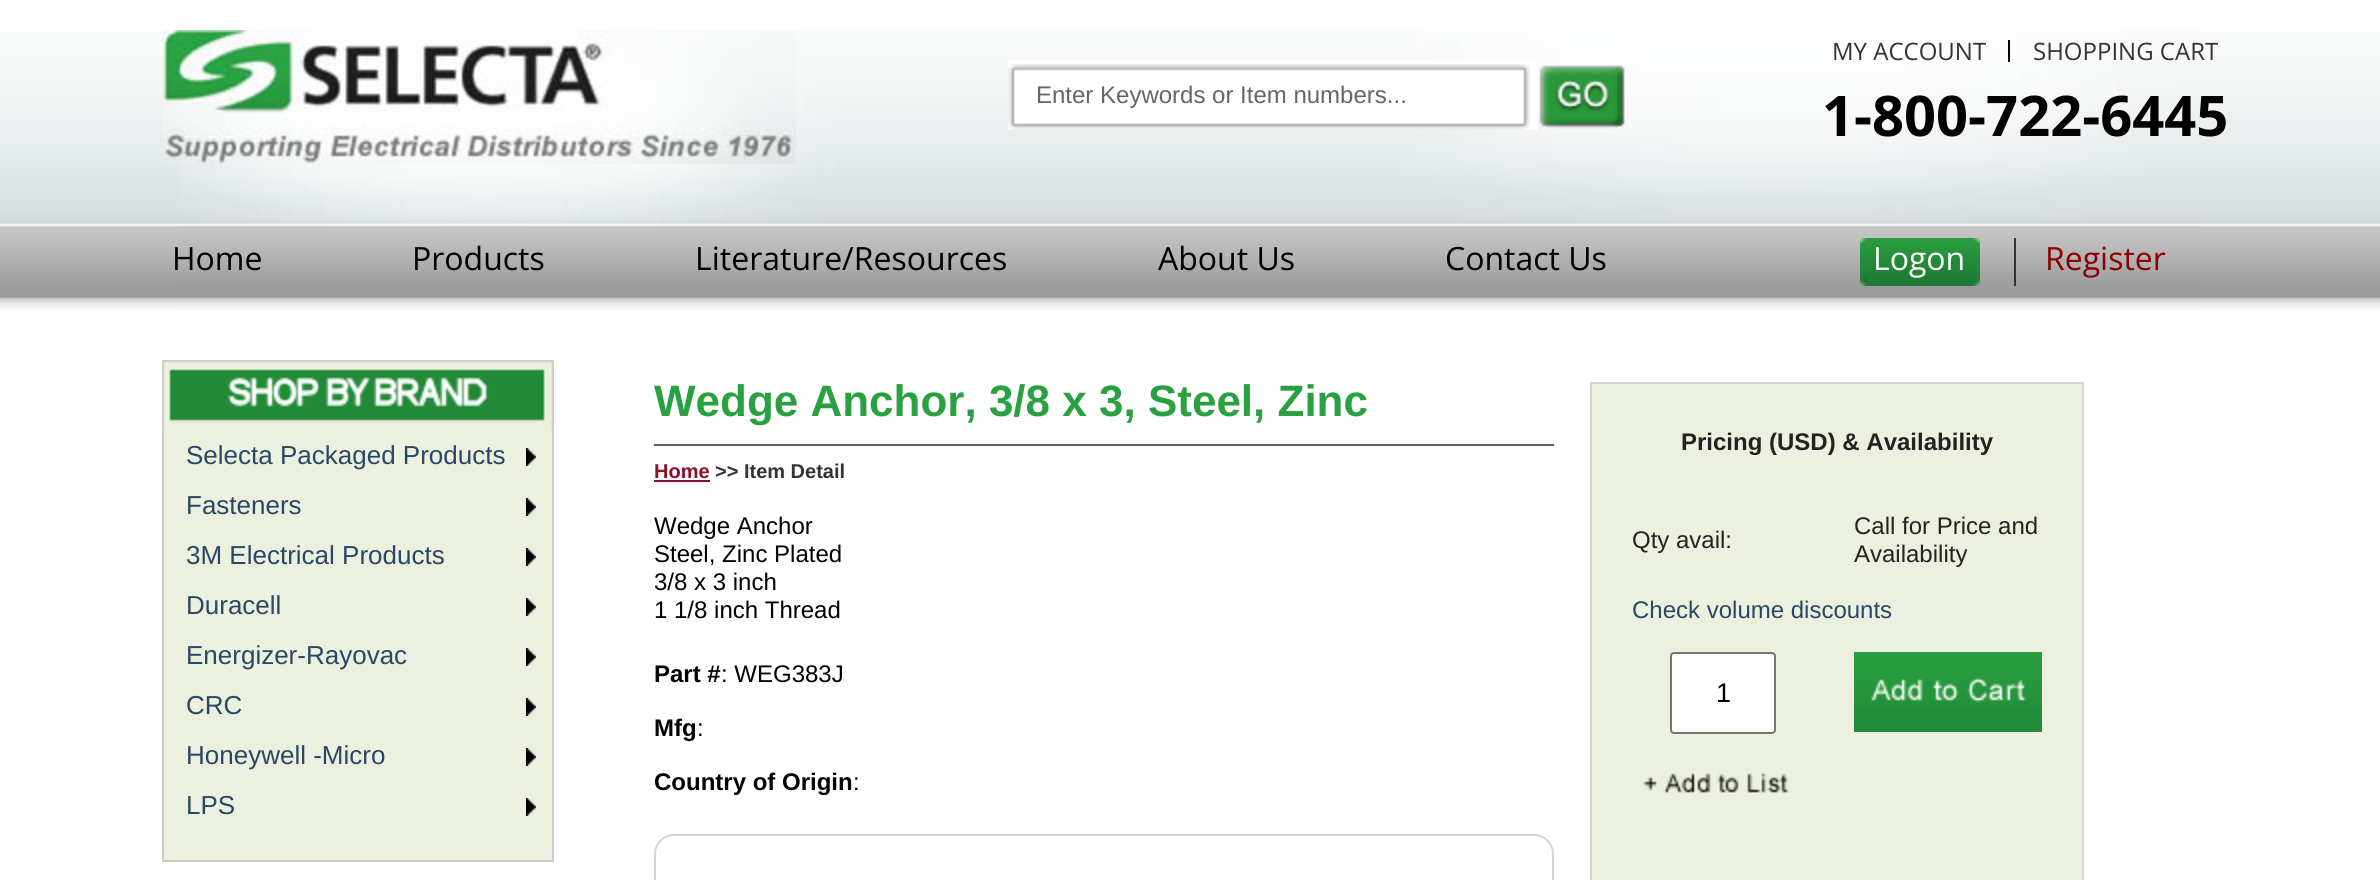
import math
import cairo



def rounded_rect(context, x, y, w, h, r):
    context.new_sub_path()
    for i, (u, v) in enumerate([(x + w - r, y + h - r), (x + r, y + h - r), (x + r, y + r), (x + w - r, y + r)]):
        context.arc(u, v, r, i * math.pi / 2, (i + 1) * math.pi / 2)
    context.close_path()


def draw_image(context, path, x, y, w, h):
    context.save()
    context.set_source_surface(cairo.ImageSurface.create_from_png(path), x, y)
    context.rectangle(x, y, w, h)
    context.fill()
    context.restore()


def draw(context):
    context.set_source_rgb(1, 1, 1)
    context.paint()
    draw_image(context, "images/1.png", 0, 32, 2380, 278)
    draw_image(context, "images/2.png", 180, 31, 2020, 280)
    draw_image(context, "images/3.png", 162, 30, 634, 134)
    context.set_source_rgb(1, 1, 1)
    context.rectangle(1008, 60, 530, 70)
    context.fill()
    draw_image(context, "images/4.png", 1008, 64, 522, 66)
    draw_image(context, "images/5.png", 1539, 65, 86, 64)
    context.set_source_rgb(0, 0, 0)
    context.rectangle(2008, 40, 2, 22)
    context.fill()
    draw_image(context, "images/6.png", 1860, 238, 120, 48)
    context.set_source_rgb(51 / 255, 51 / 255, 51 / 255)
    context.rectangle(2014, 238, 2, 48)
    context.fill()
    draw_image(context, "images/7.png", 162, 360, 392, 70)
    context.set_source_rgb(235 / 255, 241 / 255, 222 / 255)
    context.rectangle(164, 430, 388, 430)
    context.fill()
    context.set_source_rgb(203 / 255, 203 / 255, 203 / 255)
    context.rectangle(552, 430, 2, 432)
    context.fill()
    context.rectangle(162, 860, 392, 2)
    context.fill()
    context.rectangle(162, 430, 2, 432)
    context.fill()
    draw_image(context, "images/8.png", 526, 448, 10, 18)
    draw_image(context, "images/8.png", 526, 498, 10, 18)
    draw_image(context, "images/8.png", 526, 548, 10, 18)
    draw_image(context, "images/8.png", 526, 598, 10, 18)
    draw_image(context, "images/8.png", 526, 648, 10, 18)
    draw_image(context, "images/8.png", 526, 698, 10, 18)
    draw_image(context, "images/8.png", 526, 748, 10, 18)
    draw_image(context, "images/8.png", 526, 798, 10, 18)
    context.set_source_rgb(97 / 255, 97 / 255, 97 / 255)
    context.rectangle(654, 444, 900, 2)
    context.fill()
    context.set_source_rgb(136 / 255, 18 / 255, 42 / 255)
    context.rectangle(654, 480, 56, 2)
    context.fill()
    rounded_rect(context, 655, 835, 898, 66, 19)
    context.set_source_rgb(212 / 255, 212 / 255, 212 / 255)
    context.stroke()
    context.set_source_rgb(235 / 255, 241 / 255, 222 / 255)
    context.rectangle(1591, 383, 492, 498)
    context.fill_preserve()
    context.set_source_rgb(212 / 255, 212 / 255, 212 / 255)
    context.stroke()
    context.set_source_rgb(1, 1, 1)
    rounded_rect(context, 1671, 653, 104, 80, 3)
    context.fill_preserve()
    context.set_source_rgb(118 / 255, 118 / 255, 118 / 255)
    context.stroke()
    draw_image(context, "images/9.png", 1854, 652, 188, 80)
    draw_image(context, "images/10.png", 1643, 773, 146, 20)
    context.select_font_face("Liberation Sans")
    context.set_font_size(24)
    context.set_source_rgb(102 / 255, 102 / 255, 102 / 255)
    context.move_to(1036, 103)
    context.show_text("Enter Keywords or Item numbers...")
    context.select_font_face("Open Sans")
    context.set_source_rgb(51 / 255, 51 / 255, 51 / 255)
    context.move_to(1832, 60)
    context.show_text("MY ACCOUNT")
    context.move_to(2033, 60)
    context.show_text("SHOPPING CART")
    context.select_font_face("Open Sans", cairo.FontSlant.NORMAL, cairo.FontWeight.BOLD)
    context.set_font_size(56)
    context.set_source_rgb(0, 0, 0)
    context.move_to(1822, 136)
    context.show_text("1-800-722-6445")
    context.select_font_face("Open Sans")
    context.set_font_size(32)
    context.move_to(172, 270)
    context.show_text("Home")
    context.move_to(412, 270)
    context.show_text("Products")
    context.move_to(695, 270)
    context.show_text("Literature/Resources")
    context.move_to(1158, 270)
    context.show_text("About Us")
    context.move_to(1445, 270)
    context.show_text("Contact Us")
    context.set_source_rgb(1, 1, 1)
    context.move_to(1873, 270)
    context.show_text("Logon")
    context.set_source_rgb(140 / 255, 0, 0)
    context.move_to(2045, 270)
    context.show_text("Register")
    context.select_font_face("Liberation Sans")
    context.set_font_size(26)
    context.set_source_rgb(42 / 255, 71 / 255, 102 / 255)
    context.move_to(186, 464)
    context.show_text("Selecta Packaged Products")
    context.move_to(186, 514)
    context.show_text("Fasteners")
    context.move_to(186, 564)
    context.show_text("3M Electrical Products")
    context.move_to(186, 614)
    context.show_text("Duracell")
    context.move_to(186, 664)
    context.show_text("Energizer-Rayovac")
    context.move_to(186, 714)
    context.show_text("CRC")
    context.move_to(186, 764)
    context.show_text("Honeywell -Micro")
    context.move_to(186, 814)
    context.show_text("LPS")
    context.select_font_face("Liberation Sans", cairo.FontSlant.NORMAL, cairo.FontWeight.BOLD)
    context.set_font_size(44)
    context.set_source_rgb(41 / 255, 161 / 255, 64 / 255)
    context.move_to(654, 416)
    context.show_text("Wedge Anchor, 3/8 x 3, Steel, Zinc")
    context.set_font_size(20)
    context.set_source_rgb(136 / 255, 18 / 255, 42 / 255)
    context.move_to(654, 478)
    context.show_text("Home")
    context.set_source_rgb(51 / 255, 51 / 255, 51 / 255)
    context.move_to(715, 478)
    context.show_text(">> Item Detail")
    context.select_font_face("Liberation Sans")
    context.set_font_size(24)
    context.set_source_rgb(0, 0, 0)
    context.move_to(654, 534)
    context.show_text("Wedge Anchor")
    context.move_to(654, 562)
    context.show_text("Steel, Zinc Plated")
    context.move_to(654, 590)
    context.show_text("3/8 x 3 inch")
    context.move_to(654, 618)
    context.show_text("1 1/8 inch Thread")
    context.select_font_face("Liberation Sans", cairo.FontSlant.NORMAL, cairo.FontWeight.BOLD)
    context.move_to(654, 682)
    context.show_text("Part #")
    context.select_font_face("Liberation Sans")
    context.move_to(721, 682)
    context.show_text(": WEG383J")
    context.select_font_face("Liberation Sans", cairo.FontSlant.NORMAL, cairo.FontWeight.BOLD)
    context.move_to(654, 736)
    context.show_text("Mfg")
    context.select_font_face("Liberation Sans")
    context.move_to(697, 736)
    context.show_text(":")
    context.select_font_face("Liberation Sans", cairo.FontSlant.NORMAL, cairo.FontWeight.BOLD)
    context.move_to(654, 790)
    context.show_text("Country of Origin")
    context.select_font_face("Liberation Sans")
    context.move_to(853, 790)
    context.show_text(":")
    context.select_font_face("Liberation Sans", cairo.FontSlant.NORMAL, cairo.FontWeight.BOLD)
    context.set_source_rgb(34 / 255, 34 / 255, 34 / 255)
    context.move_to(1681, 450)
    context.show_text("Pricing (USD) & Availability")
    context.select_font_face("Liberation Sans")
    context.move_to(1632, 548)
    context.show_text("Qty avail:")
    context.move_to(1854, 534)
    context.show_text("Call for Price and")
    context.move_to(1854, 562)
    context.show_text("Availability")
    context.set_source_rgb(42 / 255, 71 / 255, 102 / 255)
    context.move_to(1632, 618)
    context.show_text("Check volume discounts")
    context.set_font_size(27)
    context.set_source_rgb(0, 0, 0)
    context.move_to(1716, 702)
    context.show_text("1")


surface = cairo.ImageSurface(cairo.Format.RGB24, 2380, 880)
context = cairo.Context(surface)
options = cairo.FontOptions()
options.set_hint_metrics(cairo.HintMetrics.OFF)
options.set_hint_style(cairo.HintStyle.NONE)
context.set_font_options(options)
context.set_miter_limit(4)
draw(context)
surface.write_to_png("out.png")
